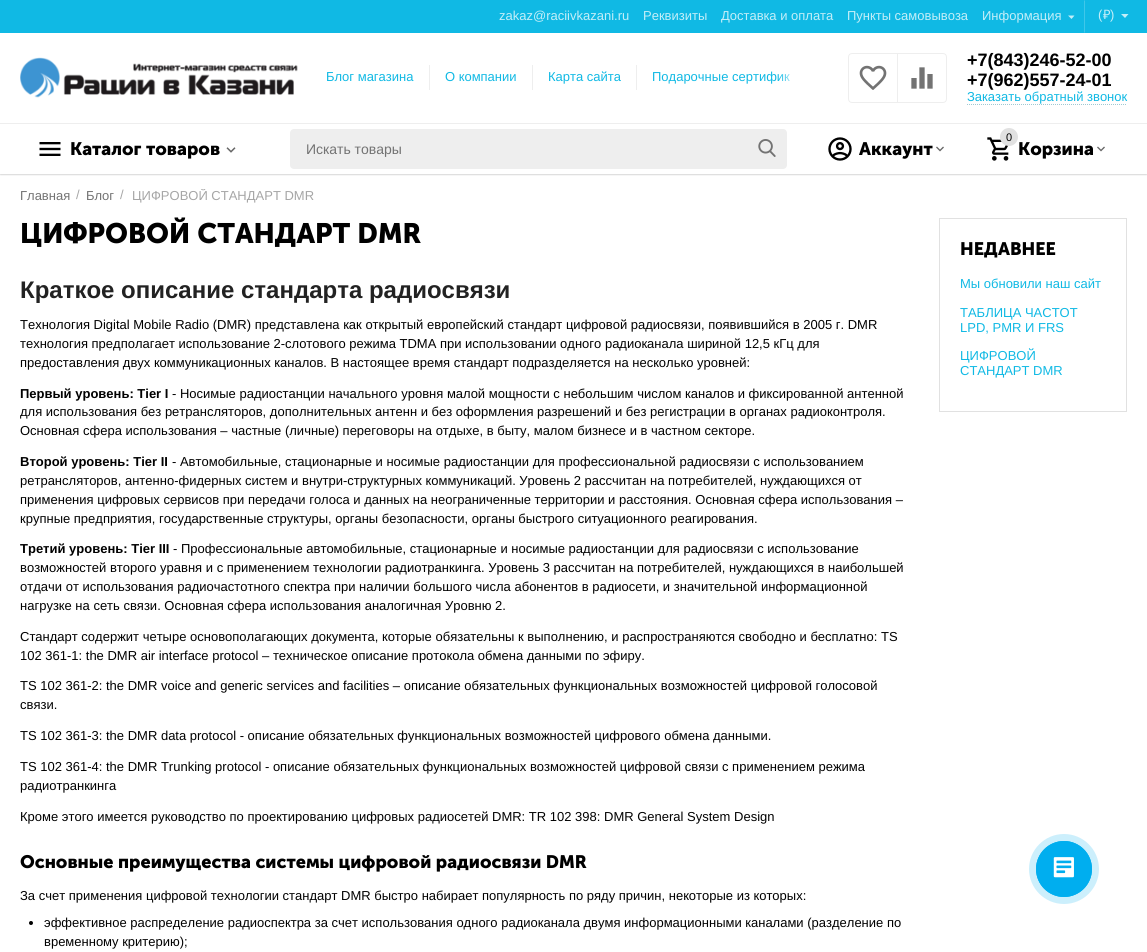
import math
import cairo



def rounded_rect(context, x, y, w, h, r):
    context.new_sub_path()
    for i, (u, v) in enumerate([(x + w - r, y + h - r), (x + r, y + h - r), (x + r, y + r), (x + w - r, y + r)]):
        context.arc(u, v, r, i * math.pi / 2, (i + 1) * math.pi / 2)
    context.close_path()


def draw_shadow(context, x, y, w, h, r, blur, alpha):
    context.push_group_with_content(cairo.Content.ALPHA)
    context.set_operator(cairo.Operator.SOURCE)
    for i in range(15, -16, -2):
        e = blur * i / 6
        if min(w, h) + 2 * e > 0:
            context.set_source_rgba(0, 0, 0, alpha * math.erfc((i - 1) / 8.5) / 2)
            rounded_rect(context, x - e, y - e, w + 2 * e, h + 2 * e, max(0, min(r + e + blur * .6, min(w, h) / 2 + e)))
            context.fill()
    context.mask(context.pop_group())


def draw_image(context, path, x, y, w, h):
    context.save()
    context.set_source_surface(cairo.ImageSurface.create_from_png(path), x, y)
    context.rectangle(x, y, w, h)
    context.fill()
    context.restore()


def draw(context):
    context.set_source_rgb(1, 1, 1)
    context.paint()
    context.set_source_rgb(16 / 255, 185 / 255, 228 / 255)
    context.rectangle(0, 0, 1147, 33)
    context.fill()
    context.set_source_rgb(195 / 255, 238 / 255, 248 / 255)
    context.new_path()
    context.move_to(1071.5, 19)
    context.line_to(1068, 15.5)
    context.line_to(1074.5, 15.5)
    context.close_path()
    context.fill()
    context.set_source_rgb(64 / 255, 199 / 255, 233 / 255)
    context.new_path()
    context.move_to(1084, 33)
    context.line_to(1084, 0)
    context.line_to(1085, 1)
    context.line_to(1085, 32)
    context.close_path()
    context.fill()
    context.set_source_rgb(195 / 255, 238 / 255, 248 / 255)
    context.new_path()
    context.move_to(1125, 18)
    context.line_to(1121, 14)
    context.line_to(1128.5, 14)
    context.close_path()
    context.fill()
    draw_image(context, "images/1.png", 20, 57, 278, 41)
    context.set_source_rgb(238 / 255, 238 / 255, 238 / 255)
    context.rectangle(429, 65, 1, 25)
    context.fill()
    context.rectangle(532, 65, 1, 25)
    context.fill()
    context.rectangle(636, 65, 1, 25)
    context.fill()
    context.new_path()
    context.move_to(897.5, 53.5)
    context.line_to(943, 53.5)
    context.curve_to(945, 53.5, 946.5, 55, 946.5, 57)
    context.line_to(946.5, 99)
    context.curve_to(946.5, 101, 945, 102.5, 943, 102.5)
    context.line_to(897.5, 102.5)
    context.close_path()
    context.set_line_width(1)
    context.stroke()
    context.set_source_rgb(1, 1, 1)
    context.new_path()
    context.move_to(852, 53.5)
    context.line_to(897.5, 53.5)
    context.line_to(897.5, 102.5)
    context.line_to(852, 102.5)
    context.curve_to(850, 102.5, 848.5, 101, 848.5, 99)
    context.line_to(848.5, 57)
    context.curve_to(848.5, 55, 850, 53.5, 852, 53.5)
    context.close_path()
    context.fill_preserve()
    context.set_source_rgb(238 / 255, 238 / 255, 238 / 255)
    context.stroke()
    draw_image(context, "images/2.png", 859, 65, 28, 25)
    draw_image(context, "images/3.png", 911, 67, 22, 22)
    context.new_path()
    context.move_to(967, 104.5)
    context.line_to(1127, 104.5)
    context.set_source_rgb(160 / 255, 201 / 255, 211 / 255)
    context.set_dash([1, 1])
    context.stroke()
    context.save()
    context.rectangle(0, 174, 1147, 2)
    context.clip()
    context.set_source_rgb(0, 0, 0)
    draw_shadow(context, 0, 125, 1147, 51, 0, 1, 0.05)
    context.restore()
    context.save()
    context.rectangle(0, 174, 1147, 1)
    context.clip()
    context.set_source_rgb(0, 0, 0)
    draw_shadow(context, 0, 124, 1147, 51, 0, 0.5, 0.1)
    context.restore()
    context.set_source_rgb(238 / 255, 238 / 255, 238 / 255)
    context.rectangle(0, 123, 1147, 1)
    context.fill()
    draw_image(context, "images/4.png", 39, 142, 22, 14)
    draw_image(context, "images/5.png", 226, 147, 10, 6)
    rounded_rect(context, 290, 129, 497, 40, 4)
    context.fill()
    draw_image(context, "images/6.png", 758, 139, 18, 18)
    draw_image(context, "images/7.png", 828, 137, 24, 24)
    draw_image(context, "images/8.png", 936, 146, 8, 6)
    draw_image(context, "images/9.png", 987, 137, 22, 24)
    context.set_source_rgb(225 / 255, 225 / 255, 225 / 255)
    context.arc(1009, 137, 9, 0, 2 * math.pi)
    context.fill()
    draw_image(context, "images/8.png", 1097, 146, 8, 6)
    context.set_source_rgb(0, 0, 0)
    context.arc(31, 923, 2, 0, 2 * math.pi)
    context.fill()
    context.rectangle(939.5, 218.5, 187, 193)
    context.set_source_rgb(225 / 255, 225 / 255, 225 / 255)
    context.set_dash([])
    context.stroke()
    context.set_source_rgb(204 / 255, 239 / 255, 252 / 255)
    context.arc(1064, 869, 35, 0, 2 * math.pi)
    context.fill()
    context.arc(1064, 869, 27.6, 0, 2 * math.pi)
    context.set_source_rgb(0, 174 / 255, 239 / 255)
    context.set_line_width(0.8)
    context.stroke()
    context.arc(1064, 869, 28, 0, 2 * math.pi)
    context.fill()
    draw_image(context, "images/10.png", 1053, 857, 21, 21)
    context.select_font_face("Liberation Sans")
    context.set_font_size(13)
    context.set_source_rgb(195 / 255, 238 / 255, 248 / 255)
    context.move_to(499, 20)
    context.show_text("zakaz@raciivkazani.ru")
    context.move_to(643, 20)
    context.show_text("Реквизиты")
    context.move_to(721, 20)
    context.show_text("Доставка и оплата")
    context.move_to(847, 20)
    context.show_text("Пункты самовывоза")
    context.move_to(982, 20)
    context.show_text("Информация")
    context.move_to(1098, 19)
    context.show_text("(")
    context.select_font_face("Noto Sans")
    context.move_to(1103, 19)
    context.show_text("₽")
    context.select_font_face("Liberation Sans")
    context.move_to(1110, 19)
    context.show_text(")")
    context.set_source_rgb(16 / 255, 185 / 255, 228 / 255)
    context.move_to(326, 81)
    context.show_text("Блог магазина")
    context.move_to(445, 81)
    context.show_text("О компании")
    context.move_to(548, 81)
    context.show_text("Карта сайта")
    context.move_to(652, 81)
    context.show_text("Подарочные сертифик")
    gradient = cairo.LinearGradient(778, 78, 798, 78)
    gradient.add_color_stop_rgba(0, 1, 1, 1, 0)
    gradient.add_color_stop_rgba(1, 1, 1, 1, 1)
    context.set_source(gradient)
    context.rectangle(778, 74, 12, 7)
    context.fill()
    context.select_font_face("Liberation Sans", cairo.FontSlant.NORMAL, cairo.FontWeight.BOLD)
    context.set_font_size(18)
    context.set_source_rgb(0, 0, 0)
    context.move_to(967, 66)
    context.show_text("+7(843)246-52-00")
    context.move_to(967, 86)
    context.show_text("+7(962)557-24-01")
    context.select_font_face("Liberation Sans")
    context.set_font_size(13)
    context.set_source_rgb(16 / 255, 185 / 255, 228 / 255)
    context.move_to(967, 101)
    context.show_text("Заказать обратный звонок")
    context.select_font_face("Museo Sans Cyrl", cairo.FontSlant.NORMAL, cairo.FontWeight.BOLD)
    context.set_font_size(18)
    context.set_source_rgb(0, 0, 0)
    context.move_to(70, 155)
    context.show_text("Каталог товаров")
    context.select_font_face("Liberation Sans")
    context.set_font_size(14)
    context.set_source_rgb(115 / 255, 115 / 255, 115 / 255)
    context.move_to(306, 154)
    context.show_text("Искать товары")
    context.select_font_face("Museo Sans Cyrl", cairo.FontSlant.NORMAL, cairo.FontWeight.BOLD)
    context.set_font_size(18)
    context.set_source_rgb(0, 0, 0)
    context.move_to(859, 155)
    context.show_text("Аккаунт")
    context.select_font_face("Liberation Sans")
    context.set_font_size(11)
    context.move_to(1006, 141)
    context.show_text("0")
    context.select_font_face("Museo Sans Cyrl", cairo.FontSlant.NORMAL, cairo.FontWeight.BOLD)
    context.set_font_size(18)
    context.move_to(1018, 155)
    context.show_text("Корзина")
    context.select_font_face("Liberation Sans")
    context.set_font_size(13)
    context.set_source_rgb(115 / 255, 115 / 255, 115 / 255)
    context.move_to(20, 200)
    context.show_text("Главная")
    context.set_source_rgb(166 / 255, 166 / 255, 166 / 255)
    context.move_to(76, 199)
    context.show_text("/")
    context.set_source_rgb(115 / 255, 115 / 255, 115 / 255)
    context.move_to(86, 200)
    context.show_text("Блог")
    context.set_source_rgb(166 / 255, 166 / 255, 166 / 255)
    context.move_to(120, 199)
    context.show_text("/")
    context.save()
    context.rectangle(132, 189, 182, 15)
    context.clip()
    context.move_to(132, 200)
    context.show_text("ЦИФРОВОЙ СТАНДАРТ DMR")
    context.restore()
    context.select_font_face("Museo Sans Cyrl", cairo.FontSlant.NORMAL, cairo.FontWeight.BOLD)
    context.set_font_size(28)
    context.set_source_rgb(0, 0, 0)
    context.move_to(20, 243)
    context.show_text("ЦИФРОВОЙ СТАНДАРТ DMR")
    context.select_font_face("Liberation Sans", cairo.FontSlant.NORMAL, cairo.FontWeight.BOLD)
    context.set_font_size(24)
    context.set_source_rgb(34 / 255, 34 / 255, 34 / 255)
    context.move_to(20, 298)
    context.show_text("Краткое описание стандарта радиосвязи")
    context.select_font_face("Liberation Sans")
    context.set_font_size(13)
    context.set_source_rgb(0, 0, 0)
    context.move_to(20, 329)
    context.show_text("Технология Digital Mobile Radio (DMR) представлена как открытый европейский стандарт цифровой радиосвязи, появившийся в 2005 г. DMR")
    context.move_to(20, 348)
    context.show_text("технология предполагает использование 2-слотового режима TDMA при использовании одного радиоканала шириной 12,5 кГц для")
    context.move_to(20, 367)
    context.show_text("предоставления двух коммуникационных каналов. В настоящее время стандарт подразделяется на несколько уровней:")
    context.select_font_face("Liberation Sans", cairo.FontSlant.NORMAL, cairo.FontWeight.BOLD)
    context.move_to(20, 398)
    context.show_text("Первый уровень: Tier I")
    context.select_font_face("Liberation Sans")
    context.move_to(172, 398)
    context.show_text("- Носимые радиостанции начального уровня малой мощности с небольшим числом каналов и фиксированной антенной")
    context.move_to(20, 416)
    context.show_text("для использования без ретрансляторов, дополнительных антенн и без оформления разрешений и без регистрации в органах радиоконтроля.")
    context.move_to(20, 435)
    context.show_text("Основная сфера использования – частные (личные) переговоры на отдыхе, в быту, малом бизнесе и в частном секторе.")
    context.select_font_face("Liberation Sans", cairo.FontSlant.NORMAL, cairo.FontWeight.BOLD)
    context.move_to(20, 466)
    context.show_text("Второй уровень: Tier II")
    context.select_font_face("Liberation Sans")
    context.move_to(172, 466)
    context.show_text("- Автомобильные, стационарные и носимые радиостанции для профессиональной радиосвязи с использованием")
    context.move_to(20, 485)
    context.show_text("ретрансляторов, антенно-фидерных систем и внутри-структурных коммуникаций. Уровень 2 рассчитан на потребителей, нуждающихся от")
    context.move_to(20, 504)
    context.show_text("применения цифровых сервисов при передачи голоса и данных на неограниченные территории и расстояния. Основная сфера использования –")
    context.move_to(20, 523)
    context.show_text("крупные предприятия, государственные структуры, органы безопасности, органы быстрого ситуационного реагирования.")
    context.select_font_face("Liberation Sans", cairo.FontSlant.NORMAL, cairo.FontWeight.BOLD)
    context.move_to(20, 553)
    context.show_text("Третий уровень: Tier III")
    context.select_font_face("Liberation Sans")
    context.move_to(173, 553)
    context.show_text("- Профессиональные автомобильные, стационарные и носимые радиостанции для радиосвязи с использование")
    context.move_to(20, 572)
    context.show_text("возможностей второго уравня и с применением технологии радиотранкинга. Уровень 3 рассчитан на потребителей, нуждающихся в наибольшей")
    context.move_to(20, 591)
    context.show_text("отдачи от использования радиочастотного спектра при наличии большого числа абонентов в радиосети, и значительной информационной")
    context.move_to(20, 610)
    context.show_text("нагрузке на сеть связи. Основная сфера использования аналогичная Уровню 2.")
    context.move_to(20, 641)
    context.show_text("Стандарт содержит четыре основополагающих документа, которые обязательны к выполнению, и распространяются свободно и бесплатно: TS")
    context.move_to(20, 660)
    context.show_text("102 361-1: the DMR air interface protocol – техническое описание протокола обмена данными по эфиру.")
    context.move_to(20, 690)
    context.show_text("TS 102 361-2: the DMR voice and generic services and facilities – описание обязательных функциональных возможностей цифровой голосовой")
    context.move_to(20, 709)
    context.show_text("связи.")
    context.move_to(20, 740)
    context.show_text("TS 102 361-3: the DMR data protocol - описание обязательных функциональных возможностей цифрового обмена данными.")
    context.move_to(20, 771)
    context.show_text("TS 102 361-4: the DMR Trunking protocol - описание обязательных функциональных возможностей цифровой связи с применением режима")
    context.move_to(20, 790)
    context.show_text("радиотранкинга")
    context.move_to(20, 821)
    context.show_text("Кроме этого имеется руководство по проектированию цифровых радиосетей DMR: TR 102 398: DMR General System Design")
    context.select_font_face("Museo Sans Cyrl", cairo.FontSlant.NORMAL, cairo.FontWeight.BOLD)
    context.set_font_size(18)
    context.move_to(20, 868)
    context.show_text("Основные преимущества системы цифровой радиосвязи DMR")
    context.select_font_face("Liberation Sans")
    context.set_font_size(13)
    context.move_to(20, 900)
    context.show_text("За счет применения цифровой технологии стандарт DMR быстро набирает популярность по ряду причин, некоторые из которых:")
    context.move_to(44, 927)
    context.show_text("эффективное распределение радиоспектра за счет использования одного радиоканала двумя информационными каналами (разделение по")
    context.move_to(44, 946)
    context.show_text("временному критерию);")
    context.select_font_face("Museo Sans Cyrl", cairo.FontSlant.NORMAL, cairo.FontWeight.BOLD)
    context.set_font_size(18)
    context.move_to(960, 255)
    context.show_text("НЕДАВНЕЕ")
    context.select_font_face("Liberation Sans")
    context.set_font_size(13)
    context.set_source_rgb(16 / 255, 185 / 255, 228 / 255)
    context.move_to(960, 288)
    context.show_text("Мы обновили наш сайт")
    context.move_to(960, 317)
    context.show_text("ТАБЛИЦА ЧАСТОТ")
    context.move_to(960, 332)
    context.show_text("LPD, PMR И FRS")
    context.move_to(960, 360)
    context.show_text("ЦИФРОВОЙ")
    context.move_to(960, 375)
    context.show_text("СТАНДАРТ DMR")


surface = cairo.ImageSurface(cairo.Format.RGB24, 1147, 952)
context = cairo.Context(surface)
options = cairo.FontOptions()
options.set_hint_metrics(cairo.HintMetrics.OFF)
options.set_hint_style(cairo.HintStyle.NONE)
context.set_font_options(options)
context.set_miter_limit(4)
draw(context)
surface.write_to_png("out.png")
